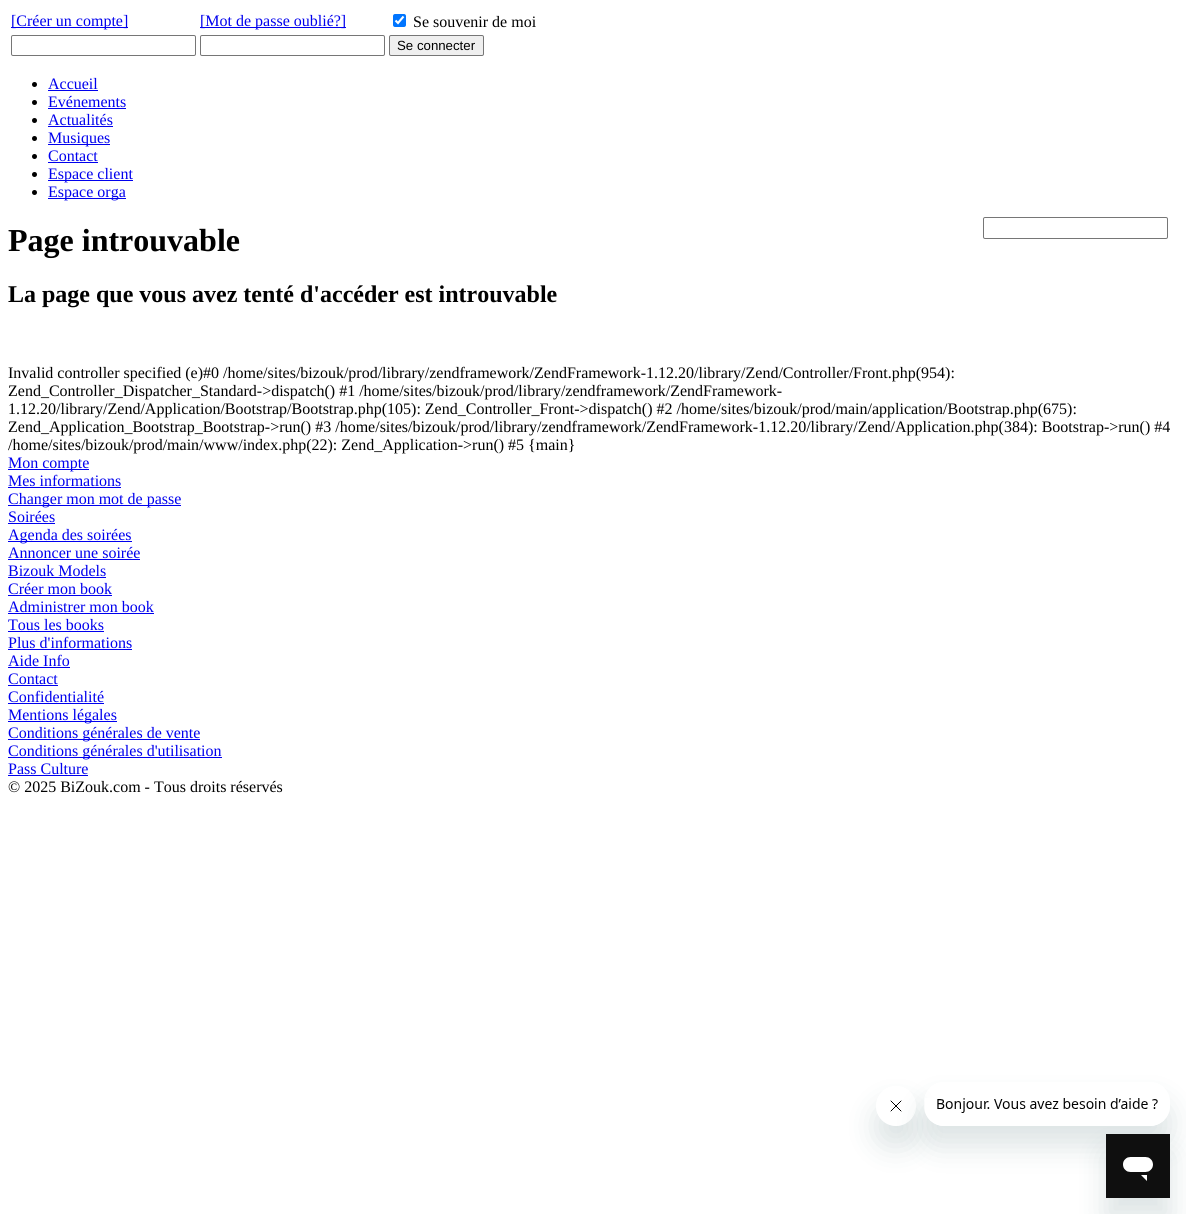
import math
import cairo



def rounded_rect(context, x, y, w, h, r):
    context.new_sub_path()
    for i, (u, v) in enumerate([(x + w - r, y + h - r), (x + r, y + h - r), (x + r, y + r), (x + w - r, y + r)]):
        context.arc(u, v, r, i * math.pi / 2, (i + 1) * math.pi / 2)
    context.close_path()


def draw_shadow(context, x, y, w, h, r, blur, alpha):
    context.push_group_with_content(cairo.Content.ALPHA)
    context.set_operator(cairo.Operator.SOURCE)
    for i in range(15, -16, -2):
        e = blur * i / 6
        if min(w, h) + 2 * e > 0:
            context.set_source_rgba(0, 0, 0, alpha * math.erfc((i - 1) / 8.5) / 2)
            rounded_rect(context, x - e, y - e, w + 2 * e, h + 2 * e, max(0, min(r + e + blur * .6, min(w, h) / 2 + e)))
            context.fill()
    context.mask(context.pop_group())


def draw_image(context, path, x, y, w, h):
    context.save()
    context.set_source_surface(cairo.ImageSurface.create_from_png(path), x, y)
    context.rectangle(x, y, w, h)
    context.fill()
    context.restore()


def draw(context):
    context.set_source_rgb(1, 1, 1)
    context.paint()
    context.set_source_rgb(0, 0, 238 / 255)
    context.rectangle(11, 27, 117, 1)
    context.fill()
    context.rectangle(200, 27, 146, 1)
    context.fill()
    context.set_source_rgb(0, 117 / 255, 1)
    rounded_rect(context, 393, 14, 13, 13, 2)
    context.fill()
    context.new_path()
    context.move_to(395.5, 20.5)
    context.line_to(398, 23)
    context.line_to(403.5, 16.5)
    context.set_source_rgb(1, 1, 1)
    context.set_line_width(2.1)
    context.stroke()
    rounded_rect(context, 11.5, 35.5, 184, 20, 1.5)
    context.set_source_rgb(118 / 255, 118 / 255, 118 / 255)
    context.set_line_width(1)
    context.stroke()
    rounded_rect(context, 200.5, 35.5, 184, 20, 1.5)
    context.stroke()
    context.set_source_rgb(239 / 255, 239 / 255, 239 / 255)
    rounded_rect(context, 389.5, 35.5, 94, 20, 1.5)
    context.fill_preserve()
    context.set_source_rgb(118 / 255, 118 / 255, 118 / 255)
    context.stroke()
    context.set_source_rgb(0, 0, 0)
    context.arc(34.5, 84.5, 2.5, 0, 2 * math.pi)
    context.fill()
    context.set_source_rgb(0, 0, 238 / 255)
    context.rectangle(48, 90, 50, 1)
    context.fill()
    context.set_source_rgb(0, 0, 0)
    context.arc(34.5, 102.5, 2.5, 0, 2 * math.pi)
    context.fill()
    context.set_source_rgb(0, 0, 238 / 255)
    context.rectangle(48, 108, 78, 1)
    context.fill()
    context.set_source_rgb(0, 0, 0)
    context.arc(34.5, 120.5, 2.5, 0, 2 * math.pi)
    context.fill()
    context.set_source_rgb(0, 0, 238 / 255)
    context.rectangle(48, 126, 65, 1)
    context.fill()
    context.set_source_rgb(0, 0, 0)
    context.arc(34.5, 138.5, 2.5, 0, 2 * math.pi)
    context.fill()
    context.set_source_rgb(0, 0, 238 / 255)
    context.rectangle(48, 144, 62, 1)
    context.fill()
    context.set_source_rgb(0, 0, 0)
    context.arc(34.5, 156.5, 2.5, 0, 2 * math.pi)
    context.fill()
    context.set_source_rgb(0, 0, 238 / 255)
    context.rectangle(48, 162, 50, 1)
    context.fill()
    context.set_source_rgb(0, 0, 0)
    context.arc(34.5, 174.5, 2.5, 0, 2 * math.pi)
    context.fill()
    context.set_source_rgb(0, 0, 238 / 255)
    context.rectangle(48, 180, 85, 1)
    context.fill()
    context.set_source_rgb(0, 0, 0)
    context.arc(34.5, 192.5, 2.5, 0, 2 * math.pi)
    context.fill()
    context.set_source_rgb(0, 0, 238 / 255)
    context.rectangle(48, 198, 78, 1)
    context.fill()
    rounded_rect(context, 983.5, 217.5, 184, 21, 1.5)
    context.set_source_rgb(118 / 255, 118 / 255, 118 / 255)
    context.stroke()
    context.set_source_rgb(0, 0, 238 / 255)
    context.rectangle(8, 469, 81, 1)
    context.fill()
    context.rectangle(8, 487, 113, 1)
    context.fill()
    context.rectangle(8, 505, 173, 1)
    context.fill()
    context.rectangle(8, 523, 47, 1)
    context.fill()
    context.rectangle(8, 541, 124, 1)
    context.fill()
    context.rectangle(8, 559, 132, 1)
    context.fill()
    context.rectangle(8, 577, 98, 1)
    context.fill()
    context.rectangle(8, 595, 104, 1)
    context.fill()
    context.rectangle(8, 613, 146, 1)
    context.fill()
    context.rectangle(8, 631, 96, 1)
    context.fill()
    context.rectangle(8, 649, 124, 1)
    context.fill()
    context.rectangle(8, 667, 62, 1)
    context.fill()
    context.rectangle(8, 685, 50, 1)
    context.fill()
    context.rectangle(8, 703, 96, 1)
    context.fill()
    context.rectangle(8, 721, 109, 1)
    context.fill()
    context.rectangle(8, 739, 192, 1)
    context.fill()
    context.rectangle(8, 757, 214, 1)
    context.fill()
    context.rectangle(8, 775, 80, 1)
    context.fill()
    context.save()
    context.set_fill_rule(cairo.FillRule.EVEN_ODD)
    context.new_path()
    context.move_to(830, 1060)
    context.line_to(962, 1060)
    context.line_to(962, 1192)
    context.line_to(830, 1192)
    context.close_path()
    context.move_to(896, 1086)
    context.curve_to(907, 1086, 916, 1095, 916, 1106)
    context.curve_to(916, 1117, 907, 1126, 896, 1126)
    context.curve_to(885, 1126, 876, 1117, 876, 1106)
    context.curve_to(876, 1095, 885, 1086, 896, 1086)
    context.close_path()
    context.clip()
    context.set_source_rgb(23 / 255, 73 / 255, 77 / 255)
    draw_shadow(context, 876, 1106, 40, 40, 20, 15, 0.15)
    context.restore()
    draw_image(context, "images/2.png", 890, 1100, 12, 12)
    context.save()
    context.set_fill_rule(cairo.FillRule.EVEN_ODD)
    context.new_path()
    context.move_to(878, 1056)
    context.line_to(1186, 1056)
    context.line_to(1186, 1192)
    context.line_to(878, 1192)
    context.close_path()
    context.move_to(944, 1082)
    context.line_to(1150, 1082)
    context.curve_to(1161, 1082, 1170, 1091, 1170, 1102)
    context.line_to(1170, 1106)
    context.curve_to(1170, 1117, 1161, 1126, 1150, 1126)
    context.line_to(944, 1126)
    context.curve_to(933, 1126, 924, 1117, 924, 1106)
    context.line_to(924, 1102)
    context.curve_to(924, 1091, 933, 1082, 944, 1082)
    context.close_path()
    context.clip()
    context.set_source_rgb(23 / 255, 73 / 255, 77 / 255)
    draw_shadow(context, 924, 1102, 246, 44, 20, 15, 0.15)
    context.restore()
    draw_image(context, "images/1.png", 925, 1098, 239, 28)
    context.set_source_rgb(23 / 255, 73 / 255, 77 / 255)
    draw_shadow(context, 1106, 1154, 64, 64, 0, 15, 0.15)
    draw_image(context, "images/3.png", 1106, 1134, 64, 64)
    context.select_font_face("Liberation Serif")
    context.set_font_size(16)
    context.set_source_rgb(0, 0, 238 / 255)
    context.move_to(11, 26)
    context.show_text("[Créer un compte]")
    context.move_to(200, 26)
    context.show_text("[Mot de passe oublié?]")
    context.set_source_rgb(0, 0, 0)
    context.move_to(413, 27)
    context.show_text("Se souvenir de moi")
    context.select_font_face("Liberation Sans")
    context.set_font_size(13.25)
    context.move_to(397, 50)
    context.show_text("Se connecter")
    context.select_font_face("Liberation Serif")
    context.set_font_size(16)
    context.set_source_rgb(0, 0, 238 / 255)
    context.move_to(48, 89)
    context.show_text("Accueil")
    context.move_to(48, 107)
    context.show_text("Evénements")
    context.move_to(48, 125)
    context.show_text("Actualités")
    context.move_to(48, 143)
    context.show_text("Musiques")
    context.move_to(48, 161)
    context.show_text("Contact")
    context.move_to(48, 179)
    context.show_text("Espace client")
    context.move_to(48, 197)
    context.show_text("Espace orga")
    context.select_font_face("Liberation Serif", cairo.FontSlant.NORMAL, cairo.FontWeight.BOLD)
    context.set_font_size(32)
    context.set_source_rgb(0, 0, 0)
    context.move_to(8, 251)
    context.show_text("Page introuvable")
    context.set_font_size(24)
    context.move_to(8, 302)
    context.show_text("La page que vous avez tenté d'accéder est introuvable")
    context.select_font_face("Liberation Serif")
    context.set_font_size(16)
    context.move_to(8, 378)
    context.show_text("Invalid controller specified (e)#0 /home/sites/bizouk/prod/library/zendframework/ZendFramework-1.12.20/library/Zend/Controller/Front.php(954):")
    context.move_to(8, 396)
    context.show_text("Zend_Controller_Dispatcher_Standard->dispatch() #1 /home/sites/bizouk/prod/library/zendframework/ZendFramework-")
    context.move_to(8, 414)
    context.show_text("1.12.20/library/Zend/Application/Bootstrap/Bootstrap.php(105): Zend_Controller_Front->dispatch() #2 /home/sites/bizouk/prod/main/application/Bootstrap.php(675):")
    context.move_to(8, 432)
    context.show_text("Zend_Application_Bootstrap_Bootstrap->run() #3 /home/sites/bizouk/prod/library/zendframework/ZendFramework-1.12.20/library/Zend/Application.php(384): Bootstrap->run() #4")
    context.move_to(8, 450)
    context.show_text("/home/sites/bizouk/prod/main/www/index.php(22): Zend_Application->run() #5 {main}")
    context.set_source_rgb(0, 0, 238 / 255)
    context.move_to(8, 468)
    context.show_text("Mon compte")
    context.move_to(8, 486)
    context.show_text("Mes informations")
    context.move_to(8, 504)
    context.show_text("Changer mon mot de passe")
    context.move_to(8, 522)
    context.show_text("Soirées")
    context.move_to(8, 540)
    context.show_text("Agenda des soirées")
    context.move_to(8, 558)
    context.show_text("Annoncer une soirée")
    context.move_to(8, 576)
    context.show_text("Bizouk Models")
    context.move_to(8, 594)
    context.show_text("Créer mon book")
    context.move_to(8, 612)
    context.show_text("Administrer mon book")
    context.move_to(8, 630)
    context.show_text("Tous les books")
    context.move_to(8, 648)
    context.show_text("Plus d'informations")
    context.move_to(8, 666)
    context.show_text("Aide Info")
    context.move_to(8, 684)
    context.show_text("Contact")
    context.move_to(8, 702)
    context.show_text("Confidentialité")
    context.move_to(8, 720)
    context.show_text("Mentions légales")
    context.move_to(8, 738)
    context.show_text("Conditions générales de vente")
    context.move_to(8, 756)
    context.show_text("Conditions générales d'utilisation")
    context.move_to(8, 774)
    context.show_text("Pass Culture")
    context.set_source_rgb(0, 0, 0)
    context.move_to(8, 792)
    context.show_text("© 2025 BiZouk.com - Tous droits réservés")


surface = cairo.ImageSurface(cairo.Format.RGB24, 1186, 1214)
context = cairo.Context(surface)
options = cairo.FontOptions()
options.set_hint_metrics(cairo.HintMetrics.OFF)
options.set_hint_style(cairo.HintStyle.NONE)
context.set_font_options(options)
context.set_miter_limit(4)
draw(context)
surface.write_to_png("out.png")
